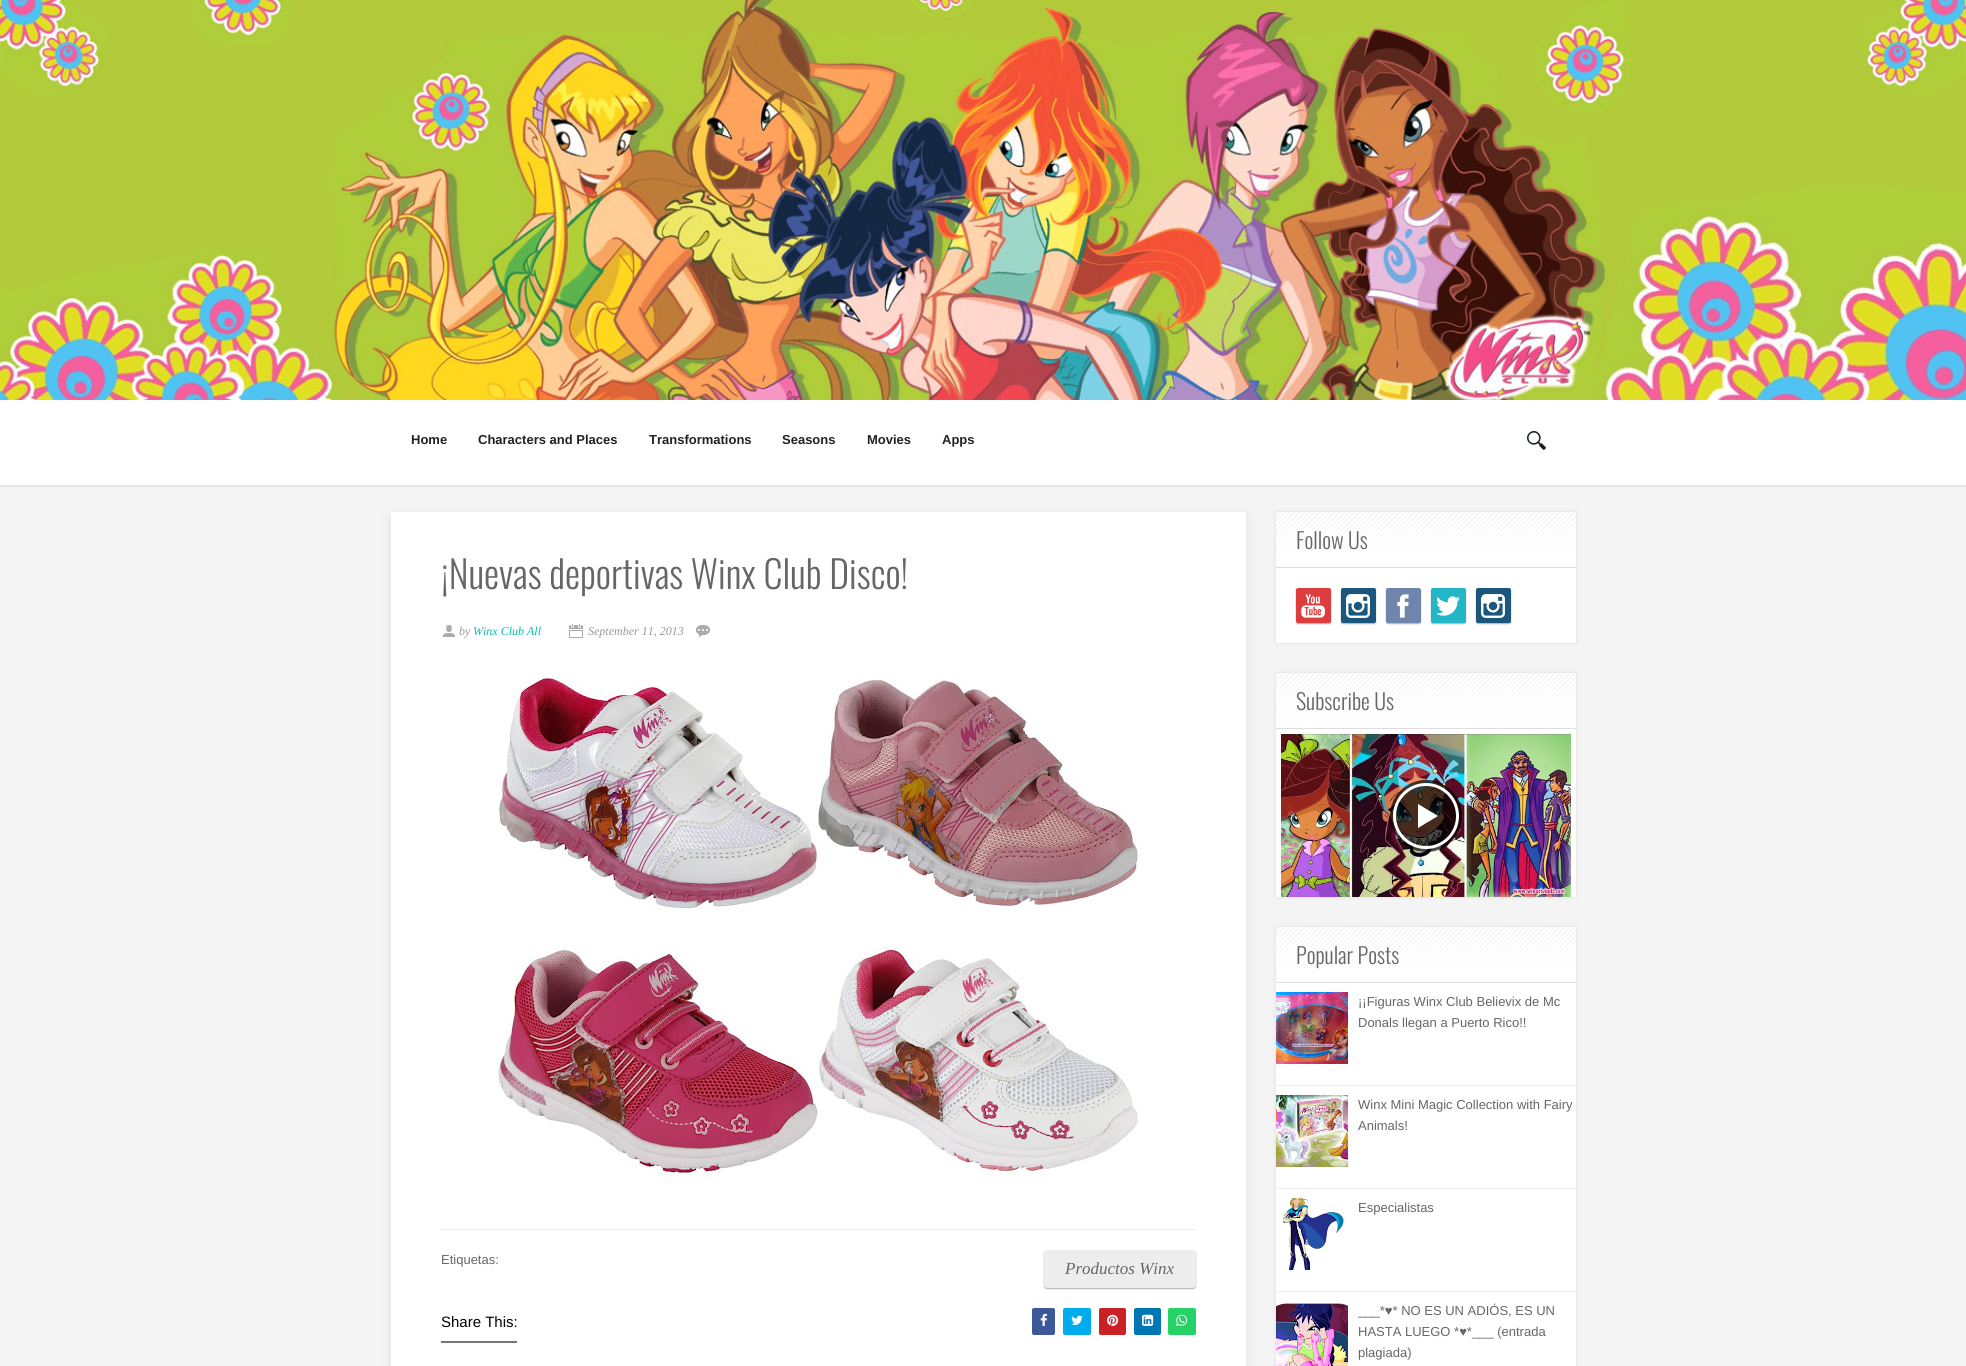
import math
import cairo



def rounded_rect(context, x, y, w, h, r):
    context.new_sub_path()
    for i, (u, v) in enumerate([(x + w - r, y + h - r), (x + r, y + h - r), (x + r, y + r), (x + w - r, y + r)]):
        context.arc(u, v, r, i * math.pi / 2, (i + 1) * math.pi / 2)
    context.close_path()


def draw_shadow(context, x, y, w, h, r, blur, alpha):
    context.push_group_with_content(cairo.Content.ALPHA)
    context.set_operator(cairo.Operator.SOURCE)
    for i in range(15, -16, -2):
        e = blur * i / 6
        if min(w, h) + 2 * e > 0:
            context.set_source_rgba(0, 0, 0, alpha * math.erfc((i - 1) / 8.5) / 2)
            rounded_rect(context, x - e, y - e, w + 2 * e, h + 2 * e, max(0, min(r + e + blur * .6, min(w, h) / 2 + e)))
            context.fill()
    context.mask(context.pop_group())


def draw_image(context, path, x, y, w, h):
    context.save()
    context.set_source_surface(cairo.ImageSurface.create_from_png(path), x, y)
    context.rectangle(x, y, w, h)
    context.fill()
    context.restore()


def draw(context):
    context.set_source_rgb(244 / 255, 244 / 255, 244 / 255)
    context.paint()
    draw_image(context, "images/1.png", 0, 0, 1966, 400)
    context.set_source_rgb(1, 1, 1)
    context.rectangle(0, 400, 1966, 85)
    context.fill()
    context.set_source_rgb(230 / 255, 230 / 255, 230 / 255)
    context.rectangle(0, 485, 1966, 2)
    context.fill()
    draw_image(context, "images/2.png", 1527, 431, 19, 19)
    context.set_source_rgb(0, 0, 0)
    draw_shadow(context, 391, 516, 855, 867, 0, 5.5, 0.09)
    context.set_source_rgb(1, 1, 1)
    context.rectangle(391, 512, 855, 854)
    context.fill()
    draw_image(context, "images/3.png", 442, 625, 13, 12)
    draw_image(context, "images/4.png", 568, 624, 15, 14)
    draw_image(context, "images/5.png", 695, 625, 15, 12)
    draw_image(context, "images/6.png", 498, 678, 320, 232)
    draw_image(context, "images/7.png", 818, 678, 320, 232)
    draw_image(context, "images/8.png", 498, 949, 320, 229)
    draw_image(context, "images/9.png", 818, 946, 320, 231)
    context.set_source_rgb(238 / 255, 238 / 255, 238 / 255)
    context.rectangle(441, 1229, 755, 1)
    context.fill()
    context.set_source_rgb(0, 0, 0)
    draw_shadow(context, 1044, 1251, 152, 38, 3, 0.5, 0.3)
    context.set_source_rgb(237 / 255, 237 / 255, 237 / 255)
    rounded_rect(context, 1044.5, 1250.5, 151, 37, 2.5)
    context.fill_preserve()
    context.set_source_rgb(235 / 255, 235 / 255, 235 / 255)
    context.set_line_width(1)
    context.stroke()
    context.set_source_rgb(119 / 255, 119 / 255, 119 / 255)
    context.rectangle(441, 1341, 76, 2)
    context.fill()
    context.set_source_rgb(59 / 255, 89 / 255, 152 / 255)
    rounded_rect(context, 1032, 1308, 23, 27, 2)
    context.fill()
    draw_image(context, "images/10.png", 1040, 1313, 7, 13)
    context.set_source_rgb(0, 172 / 255, 238 / 255)
    rounded_rect(context, 1063, 1308, 28, 27, 2)
    context.fill()
    draw_image(context, "images/11.png", 1071, 1315, 12, 10)
    context.set_source_rgb(202 / 255, 33 / 255, 39 / 255)
    rounded_rect(context, 1099, 1308, 27, 27, 2)
    context.fill()
    draw_image(context, "images/12.png", 1107, 1314, 12, 12)
    context.set_source_rgb(0, 119 / 255, 181 / 255)
    rounded_rect(context, 1134, 1308, 27, 27, 2)
    context.fill()
    draw_image(context, "images/13.png", 1142, 1314, 12, 12)
    context.set_source_rgb(37 / 255, 210 / 255, 102 / 255)
    rounded_rect(context, 1168, 1308, 28, 27, 2)
    context.fill()
    draw_image(context, "images/14.png", 1176, 1314, 12, 12)
    context.set_source_rgb(0, 0, 0)
    draw_shadow(context, 1276, 512, 300, 131, 0, 2, 0.1)
    context.set_source_rgb(1, 1, 1)
    context.rectangle(1276, 512, 300, 131)
    context.fill()
    draw_image(context, "images/15.png", 1276, 512, 300, 45)
    context.set_source_rgb(222 / 255, 222 / 255, 222 / 255)
    context.rectangle(1276, 567, 300, 1)
    context.fill()
    context.set_source_rgb(0, 0, 0)
    draw_shadow(context, 1296, 589, 35, 35, 2, 0.5, 0.3)
    context.set_source_rgb(221 / 255, 61 / 255, 61 / 255)
    rounded_rect(context, 1296, 588, 35, 35, 2)
    context.fill()
    draw_image(context, "images/16.png", 1301, 594, 24, 24)
    context.set_source_rgb(0, 0, 0)
    draw_shadow(context, 1341, 589, 35, 35, 2, 0.5, 0.3)
    context.set_source_rgb(27 / 255, 87 / 255, 125 / 255)
    rounded_rect(context, 1341, 588, 35, 35, 2)
    context.fill()
    draw_image(context, "images/17.png", 1346, 594, 24, 24)
    context.set_source_rgb(0, 0, 0)
    draw_shadow(context, 1386, 589, 35, 35, 2, 0.5, 0.3)
    context.set_source_rgb(111 / 255, 133 / 255, 174 / 255)
    rounded_rect(context, 1386, 588, 35, 35, 2)
    context.fill()
    draw_image(context, "images/18.png", 1397, 594, 12, 24)
    context.set_source_rgb(0, 0, 0)
    draw_shadow(context, 1431, 589, 35, 35, 2, 0.5, 0.3)
    context.set_source_rgb(35 / 255, 182 / 255, 198 / 255)
    rounded_rect(context, 1431, 588, 35, 35, 2)
    context.fill()
    draw_image(context, "images/19.png", 1436, 596, 24, 20)
    context.set_source_rgb(0, 0, 0)
    draw_shadow(context, 1476, 589, 35, 35, 2, 0.5, 0.3)
    context.set_source_rgb(27 / 255, 87 / 255, 125 / 255)
    rounded_rect(context, 1476, 588, 35, 35, 2)
    context.fill()
    draw_image(context, "images/17.png", 1481, 594, 24, 24)
    context.set_source_rgb(0, 0, 0)
    draw_shadow(context, 1276, 673, 300, 224, 0, 2, 0.1)
    context.set_source_rgb(1, 1, 1)
    context.rectangle(1276, 673, 300, 224)
    context.fill()
    draw_image(context, "images/15.png", 1276, 673, 300, 45)
    context.set_source_rgb(222 / 255, 222 / 255, 222 / 255)
    context.rectangle(1276, 728, 300, 1)
    context.fill()
    draw_image(context, "images/20.png", 1281, 734, 290, 163)
    draw_image(context, "images/21.png", 1390, 780, 72, 72)
    context.set_source_rgb(0, 0, 0)
    draw_shadow(context, 1276, 927, 300, 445, 0, 2, 0.1)
    context.set_source_rgb(1, 1, 1)
    context.rectangle(1276, 927, 300, 439)
    context.fill()
    draw_image(context, "images/15.png", 1276, 927, 300, 45)
    context.set_source_rgb(222 / 255, 222 / 255, 222 / 255)
    context.rectangle(1276, 982, 300, 1)
    context.fill()
    context.set_source_rgb(238 / 255, 238 / 255, 238 / 255)
    context.rectangle(1276, 1085, 300, 1)
    context.fill()
    draw_image(context, "images/22.png", 1276, 992, 72, 72)
    context.rectangle(1276, 1188, 300, 1)
    context.fill()
    draw_image(context, "images/23.png", 1276, 1095, 72, 72)
    draw_image(context, "images/24.png", 1304, 1241, 5, 4)
    context.rectangle(1276, 1291, 300, 1)
    context.fill()
    draw_image(context, "images/25.png", 1283, 1198, 61, 72)
    draw_image(context, "images/26.png", 1276, 1303, 72, 63)
    context.select_font_face("Liberation Sans", cairo.FontSlant.NORMAL, cairo.FontWeight.BOLD)
    context.set_font_size(13)
    context.set_source_rgb(34 / 255, 34 / 255, 34 / 255)
    context.move_to(411, 444)
    context.show_text("Home")
    context.move_to(478, 444)
    context.show_text("Characters and Places")
    context.move_to(649, 444)
    context.show_text("Transformations")
    context.move_to(782, 444)
    context.show_text("Seasons")
    context.move_to(867, 444)
    context.show_text("Movies")
    context.move_to(942, 444)
    context.show_text("Apps")
    context.select_font_face("Oswald Light")
    context.set_font_size(38)
    context.set_source_rgb(102 / 255, 102 / 255, 102 / 255)
    context.move_to(441, 589)
    context.show_text("¡Nuevas deportivas Winx Club Disco!")
    context.select_font_face("Liberation Serif", cairo.FontSlant.ITALIC)
    context.set_font_size(12)
    context.set_source_rgb(153 / 255, 153 / 255, 153 / 255)
    context.move_to(459, 635)
    context.show_text("by")
    context.set_source_rgb(9 / 255, 187 / 255, 178 / 255)
    context.move_to(473, 635)
    context.show_text("Winx Club All")
    context.set_source_rgb(153 / 255, 153 / 255, 153 / 255)
    context.move_to(588, 635)
    context.show_text("September 11, 2013")
    context.select_font_face("Liberation Sans")
    context.set_font_size(13)
    context.set_source_rgb(102 / 255, 102 / 255, 102 / 255)
    context.move_to(441, 1264)
    context.show_text("Etiquetas:")
    context.select_font_face("Liberation Serif", cairo.FontSlant.ITALIC)
    context.set_font_size(17)
    context.move_to(1065, 1274)
    context.show_text("Productos Winx")
    context.select_font_face("Liberation Sans")
    context.set_font_size(15)
    context.set_source_rgb(1 / 255, 1 / 255, 1 / 255)
    context.move_to(441, 1327)
    context.show_text("Share This:")
    context.select_font_face("Oswald Light")
    context.set_font_size(22)
    context.set_source_rgb(102 / 255, 102 / 255, 102 / 255)
    context.move_to(1296, 549)
    context.show_text("Follow Us")
    context.move_to(1296, 710)
    context.show_text("Subscribe Us")
    context.move_to(1296, 964)
    context.show_text("Popular Posts")
    context.select_font_face("Liberation Sans")
    context.set_font_size(13)
    context.move_to(1358, 1006)
    context.show_text("¡¡Figuras Winx Club Believix de Mc")
    context.move_to(1358, 1027)
    context.show_text("Donals llegan a Puerto Rico!!")
    context.move_to(1358, 1109)
    context.show_text("Winx Mini Magic Collection with Fairy")
    context.move_to(1358, 1130)
    context.show_text("Animals!")
    context.move_to(1358, 1212)
    context.show_text("Especialistas")
    context.move_to(1358, 1315)
    context.show_text("___*♥* NO ES UN ADIÓS, ES UN")
    context.move_to(1358, 1336)
    context.show_text("HASTA LUEGO *♥*___ (entrada")
    context.move_to(1358, 1357)
    context.show_text("plagiada)")


surface = cairo.ImageSurface(cairo.Format.RGB24, 1966, 1366)
context = cairo.Context(surface)
options = cairo.FontOptions()
options.set_hint_metrics(cairo.HintMetrics.OFF)
options.set_hint_style(cairo.HintStyle.NONE)
context.set_font_options(options)
context.set_miter_limit(4)
draw(context)
surface.write_to_png("out.png")
